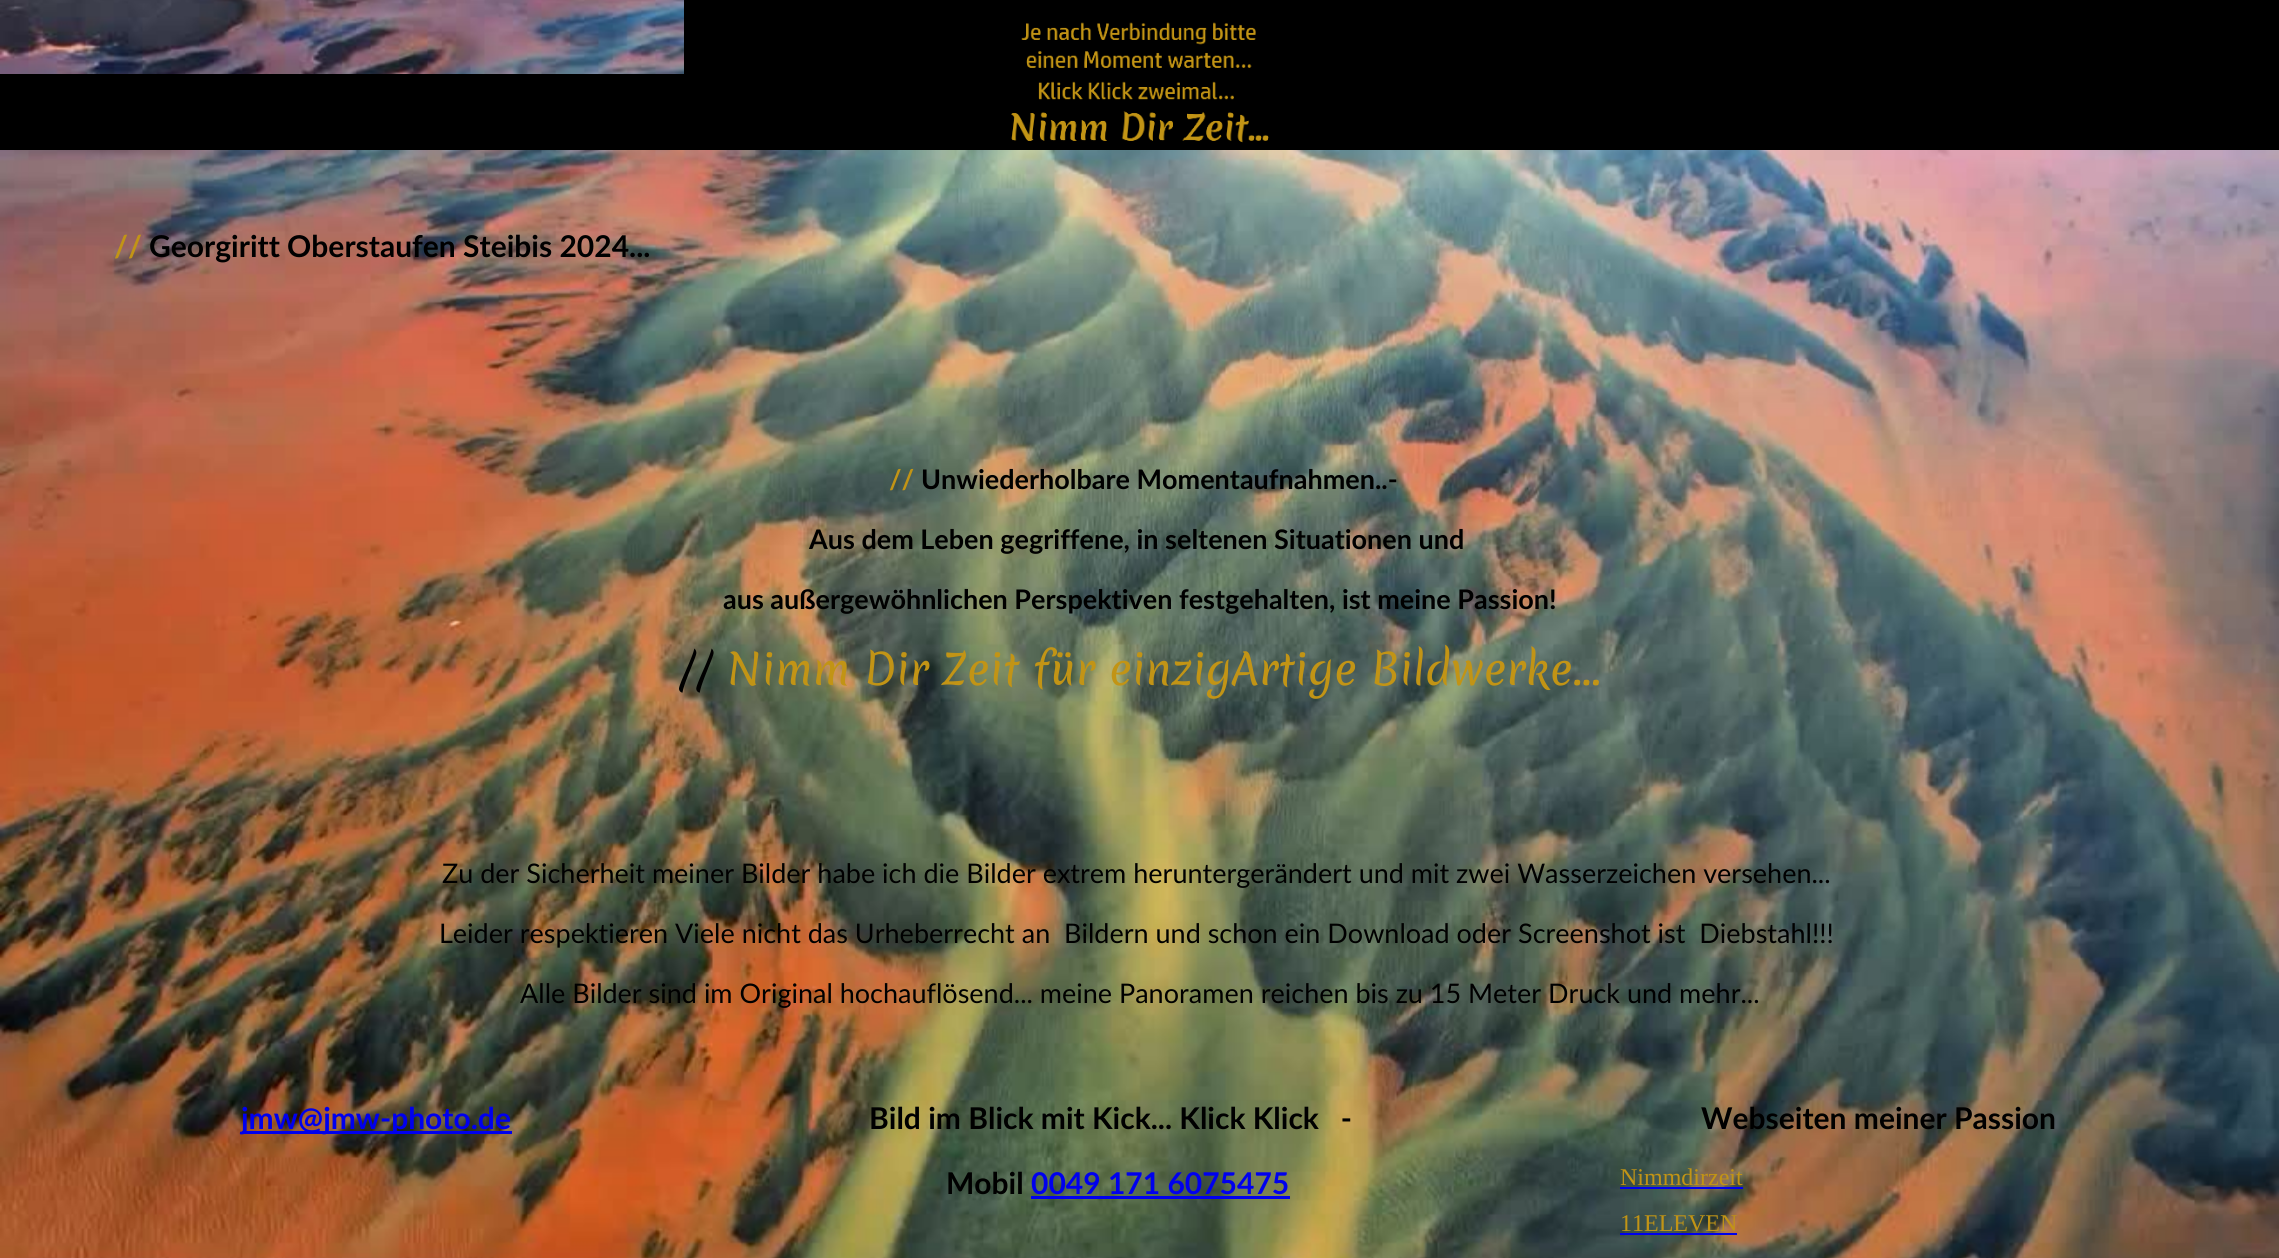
import math
import cairo



def draw_image(context, path, x, y, w, h):
    context.save()
    context.set_source_surface(cairo.ImageSurface.create_from_png(path), x, y)
    context.rectangle(x, y, w, h)
    context.fill()
    context.restore()


def draw(context):
    context.set_source_rgb(1, 1, 1)
    context.paint()
    draw_image(context, "images/1.png", 0, 0, 2279, 1258)
    context.set_source_rgb(0, 0, 0)
    context.rectangle(684, 0, 1595, 150)
    context.fill()
    draw_image(context, "images/2.png", 1011, 22, 258, 121)
    context.rectangle(0, 74, 684, 76)
    context.fill()
    context.set_source_rgb(0, 0, 238 / 255)
    context.rectangle(242, 1131, 270, 3)
    context.fill()
    context.rectangle(1031, 1196, 259, 3)
    context.fill()
    context.rectangle(1620, 1187, 123, 2)
    context.fill()
    context.rectangle(1620, 1233, 117, 2)
    context.fill()
    context.select_font_face("Lato", cairo.FontSlant.NORMAL, cairo.FontWeight.BOLD)
    context.set_font_size(30)
    context.set_source_rgb(194 / 255, 148 / 255, 21 / 255)
    context.move_to(114, 257)
    context.show_text("//")
    context.set_source_rgb(0, 0, 0)
    context.move_to(149, 257)
    context.show_text("Georgiritt Oberstaufen Steibis 2024...")
    context.set_font_size(27)
    context.set_source_rgb(194 / 255, 148 / 255, 21 / 255)
    context.move_to(889, 489)
    context.show_text("//")
    context.set_source_rgb(0, 0, 0)
    context.move_to(921, 489)
    context.show_text("Unwiederholbare Momentaufnahmen..-")
    context.move_to(809, 549)
    context.show_text("Aus dem Leben gegriffene, in seltenen Situationen und")
    context.move_to(723, 609)
    context.show_text("aus außergewöhnlichen Perspektiven festgehalten, ist meine Passion!")
    context.select_font_face("Merienda")
    context.set_font_size(42)
    context.move_to(679, 685)
    context.show_text("//")
    context.set_source_rgb(194 / 255, 148 / 255, 21 / 255)
    context.move_to(727, 685)
    context.show_text("Nimm Dir Zeit für einzigArtige Bildwerke...")
    context.select_font_face("Lato")
    context.set_font_size(27)
    context.set_source_rgb(0, 0, 0)
    context.move_to(442, 883)
    context.show_text("Zu der Sicherheit meiner Bilder habe ich die Bilder extrem heruntergerändert und mit zwei Wasserzeichen versehen...")
    context.move_to(439, 943)
    context.show_text("Leider respektieren Viele nicht das Urheberrecht an  Bildern und schon ein Download oder Screenshot ist  Diebstahl!!!")
    context.move_to(520, 1003)
    context.show_text("Alle Bilder sind im Original hochauflösend... meine Panoramen reichen bis zu 15 Meter Druck und mehr...")
    context.select_font_face("Lato", cairo.FontSlant.NORMAL, cairo.FontWeight.BOLD)
    context.set_font_size(30)
    context.set_source_rgb(0, 0, 238 / 255)
    context.move_to(241, 1129)
    context.show_text("jmw@jmw-photo.de")
    context.set_source_rgb(0, 0, 0)
    context.move_to(869, 1129)
    context.show_text("Bild im Blick mit Kick... Klick Klick   -")
    context.move_to(946, 1194)
    context.show_text("Mobil")
    context.set_source_rgb(0, 0, 238 / 255)
    context.move_to(1031, 1194)
    context.show_text("0049 171 6075475")
    context.set_source_rgb(0, 0, 0)
    context.move_to(1701, 1129)
    context.show_text("Webseiten meiner Passion")
    context.select_font_face("Liberation Serif")
    context.set_font_size(24)
    context.set_source_rgb(194 / 255, 148 / 255, 21 / 255)
    context.move_to(1620, 1185)
    context.show_text("Nimmdirzeit")
    context.move_to(1620, 1231)
    context.show_text("11ELEVEN")


surface = cairo.ImageSurface(cairo.Format.RGB24, 2279, 1258)
context = cairo.Context(surface)
options = cairo.FontOptions()
options.set_hint_metrics(cairo.HintMetrics.OFF)
options.set_hint_style(cairo.HintStyle.NONE)
context.set_font_options(options)
context.set_miter_limit(4)
draw(context)
surface.write_to_png("out.png")
